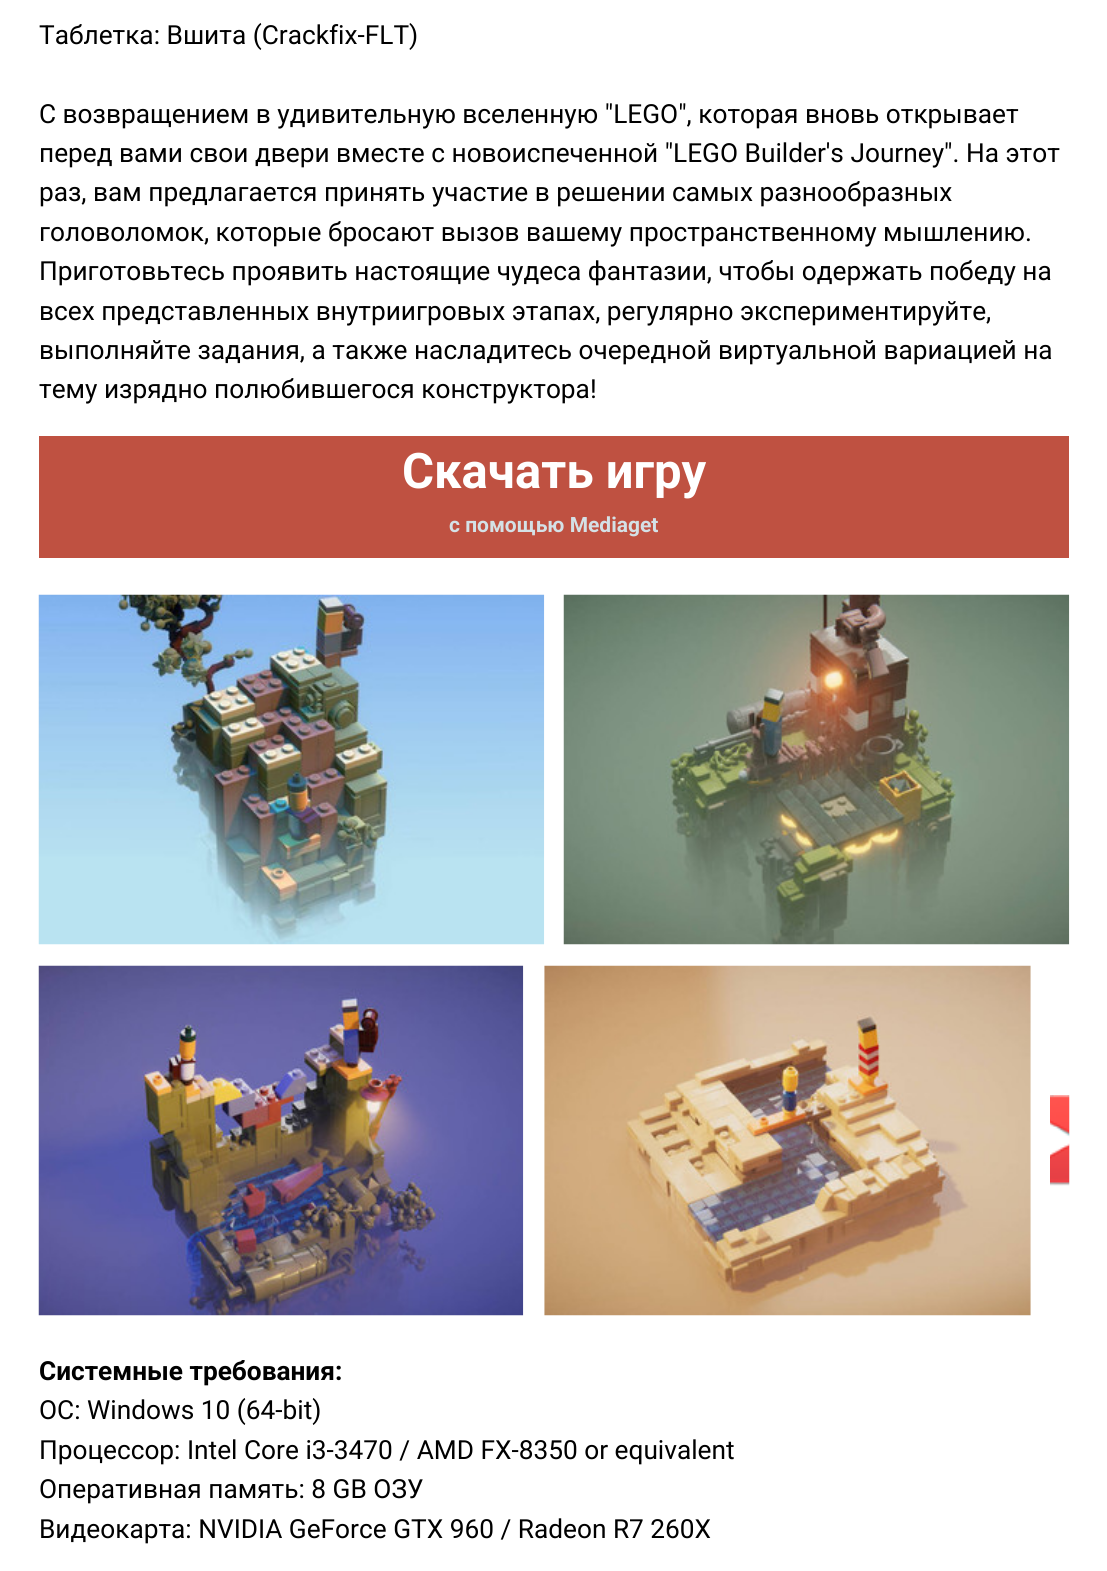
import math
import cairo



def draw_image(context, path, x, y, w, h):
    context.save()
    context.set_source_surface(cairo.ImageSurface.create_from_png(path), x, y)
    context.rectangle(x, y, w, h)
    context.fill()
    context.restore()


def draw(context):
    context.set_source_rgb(1, 1, 1)
    context.paint()
    context.set_source_rgb(191 / 255, 81 / 255, 65 / 255)
    context.rectangle(39, 436, 1030, 122)
    context.fill()
    draw_image(context, "images/1.png", 38, 594, 507, 351)
    draw_image(context, "images/2.png", 563, 594, 507, 351)
    draw_image(context, "images/3.png", 38, 965, 486, 351)
    draw_image(context, "images/4.png", 544, 965, 487, 351)
    draw_image(context, "images/5.png", 1050, 1095, 20, 91)
    context.select_font_face("Roboto")
    context.set_font_size(26.25)
    context.set_source_rgb(0, 0, 0)
    context.move_to(39, 44)
    context.show_text("Таблетка: Вшита (Crackfix-FLT)")
    context.move_to(39, 123)
    context.show_text("С возвращением в удивительную вселенную \"LEGO\", которая вновь открывает")
    context.move_to(39, 162)
    context.show_text("перед вами свои двери вместе с новоиспеченной \"LEGO Builder's Journey\". На этот")
    context.move_to(39, 201)
    context.show_text("раз, вам предлагается принять участие в решении самых разнообразных")
    context.move_to(39, 241)
    context.show_text("головоломок, которые бросают вызов вашему пространственному мышлению.")
    context.move_to(39, 280)
    context.show_text("Приготовьтесь проявить настоящие чудеса фантазии, чтобы одержать победу на")
    context.move_to(39, 320)
    context.show_text("всех представленных внутриигровых этапах, регулярно экспериментируйте,")
    context.move_to(39, 359)
    context.show_text("выполняйте задания, а также насладитесь очередной виртуальной вариацией на")
    context.move_to(39, 398)
    context.show_text("тему изрядно полюбившегося конструктора!")
    context.select_font_face("Roboto", cairo.FontSlant.NORMAL, cairo.FontWeight.BOLD)
    context.set_font_size(49)
    context.set_source_rgb(1, 1, 1)
    context.move_to(402, 488)
    context.show_text("Скачать игру")
    context.set_font_size(21)
    context.set_source_rgb(212 / 255, 225 / 255, 230 / 255)
    context.move_to(449, 532)
    context.show_text("с помощью Mediaget")
    context.set_font_size(26.25)
    context.set_source_rgb(0, 0, 0)
    context.move_to(39, 1380)
    context.show_text("Системные требования:")
    context.select_font_face("Roboto")
    context.move_to(39, 1419)
    context.show_text("ОС: Windows 10 (64-bit)")
    context.move_to(39, 1459)
    context.show_text("Процессор: Intel Core i3-3470 / AMD FX-8350 or equivalent")
    context.move_to(39, 1498)
    context.show_text("Оперативная память: 8 GB ОЗУ")
    context.move_to(39, 1538)
    context.show_text("Видеокарта: NVIDIA GeForce GTX 960 / Radeon R7 260X")


surface = cairo.ImageSurface(cairo.Format.RGB24, 1107, 1571)
context = cairo.Context(surface)
options = cairo.FontOptions()
options.set_hint_metrics(cairo.HintMetrics.OFF)
options.set_hint_style(cairo.HintStyle.NONE)
context.set_font_options(options)
context.set_miter_limit(4)
draw(context)
surface.write_to_png("out.png")
